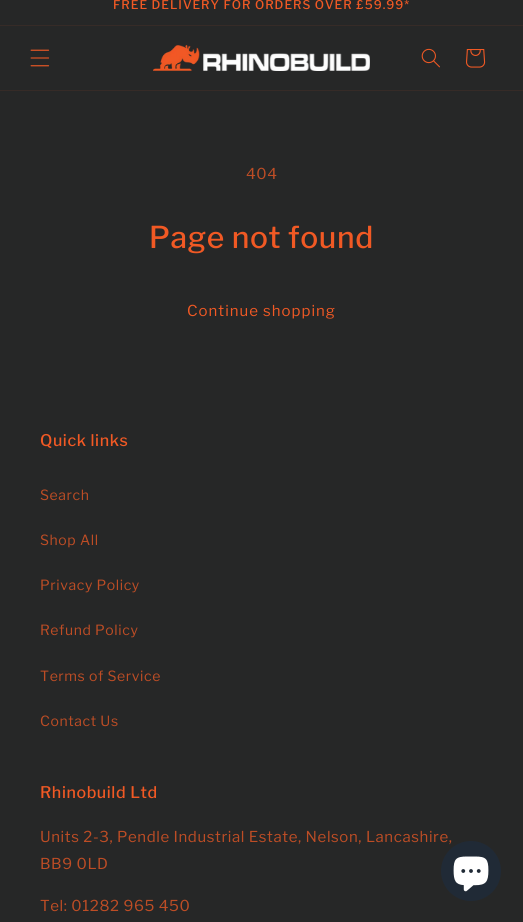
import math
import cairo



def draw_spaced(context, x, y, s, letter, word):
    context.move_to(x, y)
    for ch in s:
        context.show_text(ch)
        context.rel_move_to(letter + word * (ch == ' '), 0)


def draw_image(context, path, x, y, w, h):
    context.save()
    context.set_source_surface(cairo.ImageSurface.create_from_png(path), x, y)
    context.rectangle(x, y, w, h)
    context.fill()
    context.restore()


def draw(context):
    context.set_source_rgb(38 / 255, 39 / 255, 39 / 255)
    context.paint()
    context.set_source_rgb(54 / 255, 43 / 255, 39 / 255)
    context.rectangle(0, 25, 523, 1)
    context.fill()
    context.rectangle(0, 90, 523, 1)
    context.fill()
    draw_image(context, "images/1.png", 30, 49, 20, 18)
    draw_image(context, "images/2.png", 153, 45, 217, 26)
    draw_image(context, "images/3.png", 421, 48, 19, 20)
    draw_image(context, "images/4.png", 466, 49, 20, 19)
    context.select_font_face("Libre Franklin Medium")
    context.set_font_size(12)
    context.set_source_rgb(241 / 255, 89 / 255, 36 / 255)
    draw_spaced(context, 113, 9, "FREE DELIVERY FOR ORDERS OVER £59.99*", 1, 0)
    context.select_font_face("Libre Franklin")
    context.set_font_size(15)
    context.set_source_rgb(190 / 255, 77 / 255, 37 / 255)
    draw_spaced(context, 246, 179, "404", 0.6, 0)
    context.select_font_face("Libre Franklin Medium")
    context.set_font_size(30)
    context.set_source_rgb(241 / 255, 89 / 255, 36 / 255)
    draw_spaced(context, 149, 248, "Page not found", 0.6, 0)
    context.select_font_face("Libre Franklin")
    context.set_font_size(15)
    draw_spaced(context, 187, 316, "Continue shopping", 1, 0)
    context.select_font_face("Libre Franklin Medium")
    context.set_font_size(16)
    draw_spaced(context, 40, 446, "Quick links", 0.6, 0)
    context.select_font_face("Libre Franklin")
    context.set_font_size(14)
    context.set_source_rgb(190 / 255, 77 / 255, 37 / 255)
    draw_spaced(context, 40, 500, "Search", 0.6, 0)
    draw_spaced(context, 40, 545, "Shop All", 0.6, 0)
    draw_spaced(context, 40, 590, "Privacy Policy", 0.6, 0)
    draw_spaced(context, 40, 635, "Refund Policy", 0.6, 0)
    draw_spaced(context, 40, 681, "Terms of Service", 0.6, 0)
    draw_spaced(context, 40, 726, "Contact Us", 0.6, 0)
    context.select_font_face("Libre Franklin Medium")
    context.set_font_size(16)
    context.set_source_rgb(241 / 255, 89 / 255, 36 / 255)
    draw_spaced(context, 40, 798, "Rhinobuild Ltd", 0.6, 0)
    context.select_font_face("Libre Franklin")
    context.set_font_size(15)
    context.set_source_rgb(190 / 255, 77 / 255, 37 / 255)
    draw_spaced(context, 40, 842, "Units 2-3, Pendle Industrial Estate, Nelson, Lancashire,", 0.6, 0)
    draw_spaced(context, 40, 869, "BB9 0LD", 0.6, 0)
    draw_spaced(context, 40, 911, "Tel: 01282 965 450", 0.6, 0)
    context.set_source_rgb(32 / 255, 42 / 255, 54 / 255)
    context.new_path()
    context.arc(471, 871, 30, 0, 2 * math.pi)
    context.fill()
    draw_image(context, "images/5.png", 453, 856, 36, 36)


surface = cairo.ImageSurface(cairo.Format.RGB24, 523, 922)
context = cairo.Context(surface)
options = cairo.FontOptions()
options.set_hint_metrics(cairo.HintMetrics.OFF)
options.set_hint_style(cairo.HintStyle.NONE)
context.set_font_options(options)
context.set_miter_limit(4)
draw(context)
surface.write_to_png("out.png")
